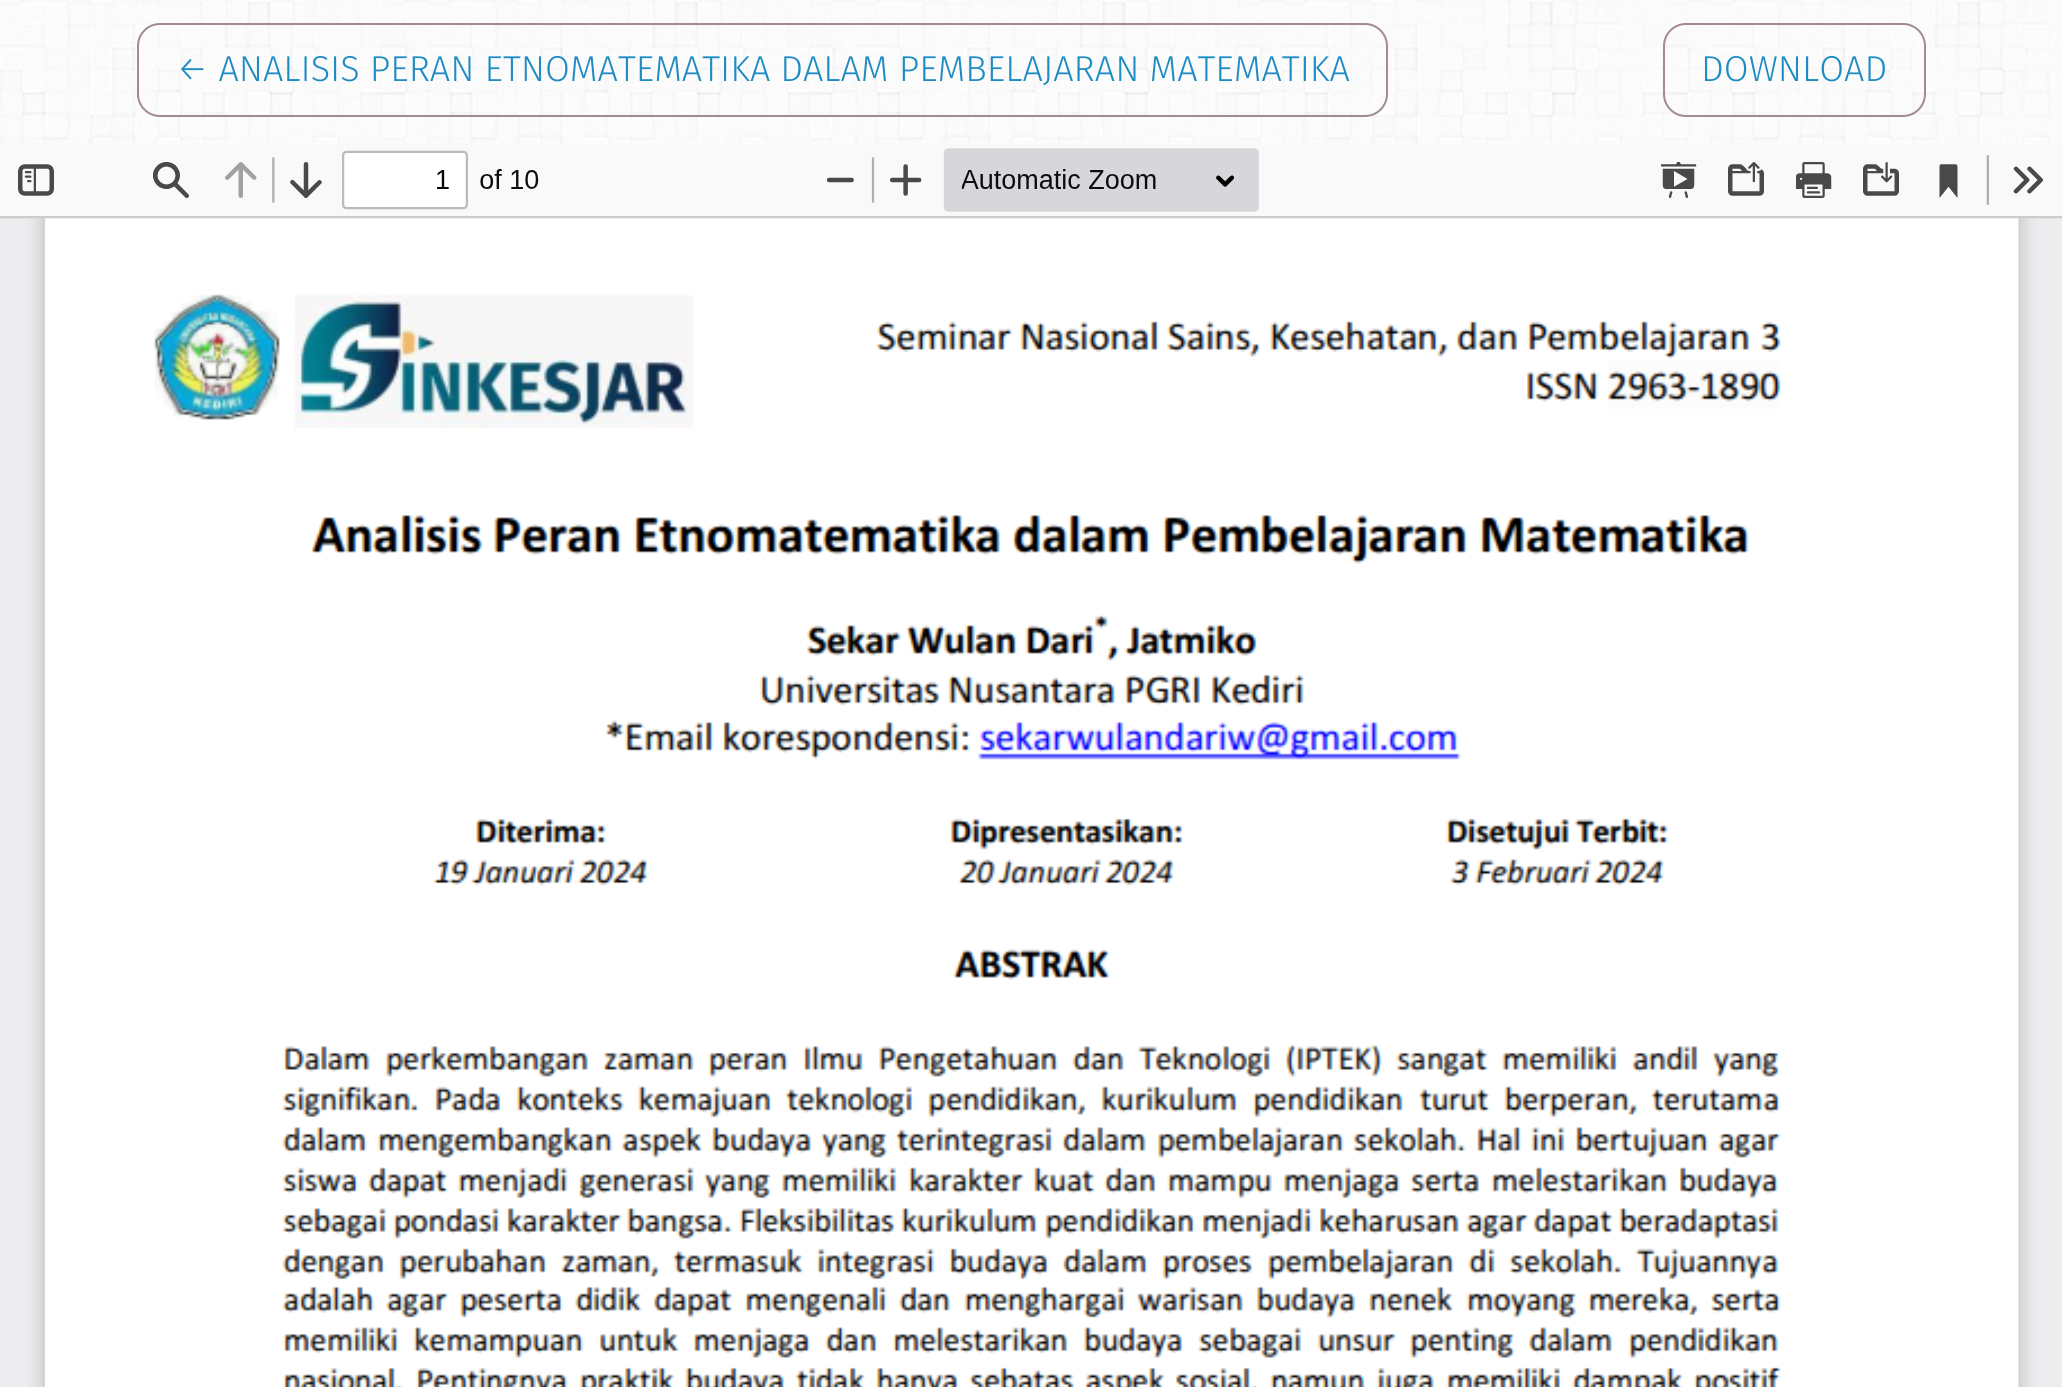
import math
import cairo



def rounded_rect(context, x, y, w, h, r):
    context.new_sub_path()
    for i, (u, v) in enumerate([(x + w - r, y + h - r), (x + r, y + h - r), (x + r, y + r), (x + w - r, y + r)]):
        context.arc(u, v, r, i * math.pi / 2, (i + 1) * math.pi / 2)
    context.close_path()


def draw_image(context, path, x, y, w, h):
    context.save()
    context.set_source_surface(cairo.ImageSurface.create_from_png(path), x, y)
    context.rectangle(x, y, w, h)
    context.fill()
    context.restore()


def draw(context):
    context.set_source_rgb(1, 1, 1)
    context.paint()
    draw_image(context, "images/1.png", 0, 117, 2062, 27)
    draw_image(context, "images/2.png", 0, 0, 2062, 117)
    rounded_rect(context, 138, 24, 1249, 92, 22)
    context.set_source_rgb(161 / 255, 138 / 255, 150 / 255)
    context.stroke()
    rounded_rect(context, 1664, 24, 261, 92, 22)
    context.stroke()
    draw_image(context, "images/3.png", 0, 144, 2062, 1243)
    context.select_font_face("Fira Sans Light")
    context.set_font_size(36)
    context.set_source_rgb(30 / 255, 139 / 255, 195 / 255)
    context.move_to(176, 81)
    context.show_text("← ANALISIS PERAN ETNOMATEMATIKA DALAM PEMBELAJARAN MATEMATIKA")
    context.move_to(1701, 81)
    context.show_text("DOWNLOAD")


surface = cairo.ImageSurface(cairo.Format.RGB24, 2062, 1387)
context = cairo.Context(surface)
options = cairo.FontOptions()
options.set_hint_metrics(cairo.HintMetrics.OFF)
options.set_hint_style(cairo.HintStyle.NONE)
context.set_font_options(options)
context.set_miter_limit(4)
draw(context)
surface.write_to_png("out.png")
